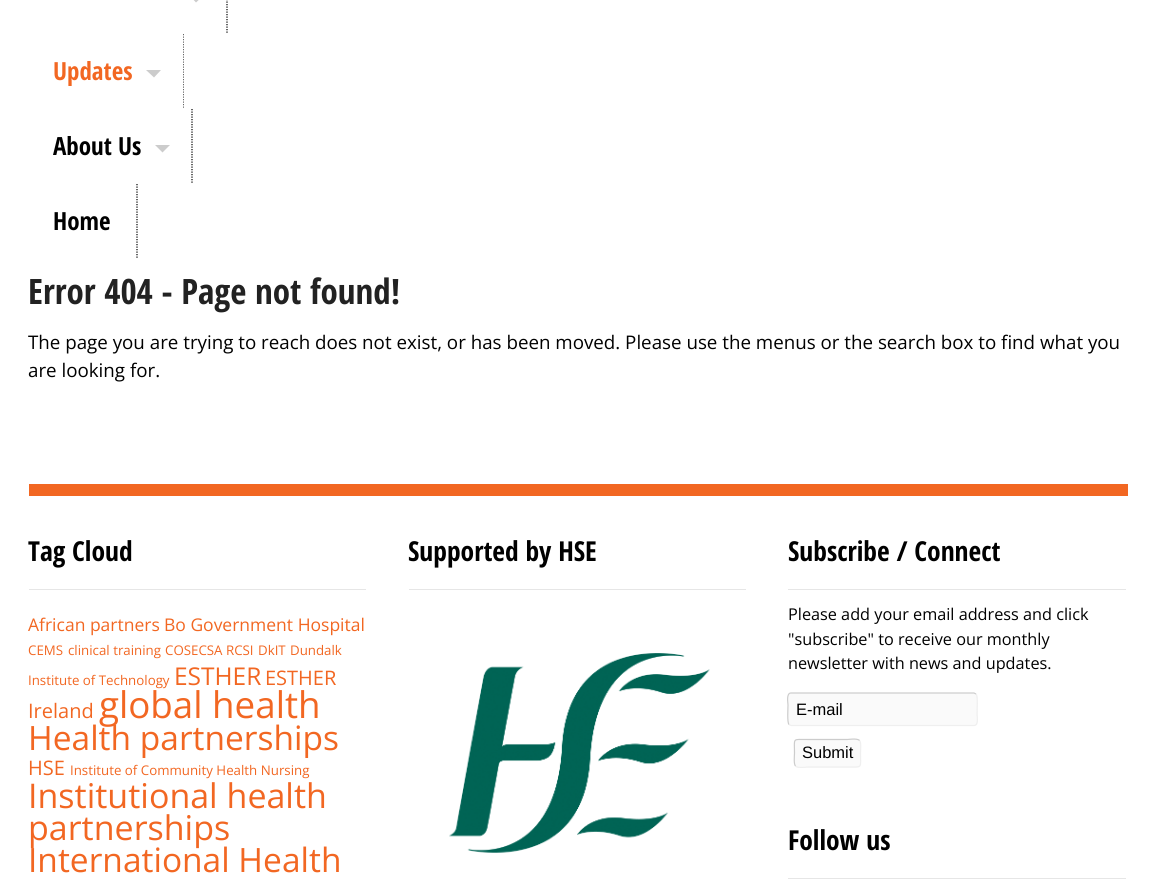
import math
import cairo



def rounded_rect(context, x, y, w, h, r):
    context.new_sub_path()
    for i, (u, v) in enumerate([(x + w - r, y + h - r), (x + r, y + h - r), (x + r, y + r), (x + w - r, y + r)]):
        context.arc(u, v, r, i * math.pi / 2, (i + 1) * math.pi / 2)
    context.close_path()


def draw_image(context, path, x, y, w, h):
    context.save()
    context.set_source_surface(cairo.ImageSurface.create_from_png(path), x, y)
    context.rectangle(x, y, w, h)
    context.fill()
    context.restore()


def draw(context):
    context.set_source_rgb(1, 1, 1)
    context.paint()
    context.new_path()
    context.move_to(227, -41)
    context.line_to(227, 34)
    context.set_source_rgb(0, 0, 0)
    context.set_line_width(1.2)
    context.set_dash([1.25, 1.25])
    context.stroke()
    context.set_source_rgb(204 / 255, 204 / 255, 204 / 255)
    context.new_path()
    context.move_to(189, -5)
    context.line_to(204, -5)
    context.line_to(196, 2.5)
    context.close_path()
    context.fill()
    context.new_path()
    context.move_to(183, 34)
    context.line_to(183, 109)
    context.set_source_rgb(0, 0, 0)
    context.stroke()
    context.set_source_rgb(1, 1, 1)
    context.rectangle(182, 34, 1, 74)
    context.fill()
    context.set_source_rgb(204 / 255, 204 / 255, 204 / 255)
    context.new_path()
    context.move_to(146, 70)
    context.line_to(161, 70)
    context.line_to(154, 77.5)
    context.close_path()
    context.fill()
    context.new_path()
    context.move_to(192, 109)
    context.line_to(192, 184)
    context.set_source_rgb(0, 0, 0)
    context.stroke()
    context.set_source_rgb(204 / 255, 204 / 255, 204 / 255)
    context.new_path()
    context.move_to(155, 145)
    context.line_to(170, 145)
    context.line_to(162.5, 152.5)
    context.close_path()
    context.fill()
    context.new_path()
    context.move_to(137, 184)
    context.line_to(137, 259)
    context.set_source_rgb(0, 0, 0)
    context.stroke()
    context.set_source_rgb(242 / 255, 103 / 255, 34 / 255)
    context.rectangle(29, 484, 1099, 12)
    context.fill()
    context.set_source_rgb(230 / 255, 230 / 255, 230 / 255)
    context.rectangle(29, 589, 337, 1)
    context.fill()
    context.rectangle(409, 589, 337, 1)
    context.fill()
    draw_image(context, "images/1.png", 449, 653, 261, 200)
    context.rectangle(788, 589, 338, 1)
    context.fill()
    context.set_source_rgb(250 / 255, 250 / 255, 250 / 255)
    rounded_rect(context, 788, 693, 190, 33, 4)
    context.fill()
    context.new_path()
    context.move_to(976, 694)
    context.curve_to(978, 696, 977, 710.5, 977, 714)
    context.curve_to(977, 716, 979, 725.5, 974, 725.5)
    context.line_to(791, 725.5)
    context.line_to(789, 724.5)
    context.set_source_rgb(239 / 255, 239 / 255, 239 / 255)
    context.set_dash([])
    context.stroke()
    context.new_path()
    context.move_to(789, 724.5)
    context.curve_to(787, 722.5, 788, 708.5, 788, 705)
    context.curve_to(788, 703, 786, 693, 791, 693)
    context.line_to(974, 693)
    context.line_to(976, 694)
    context.set_source_rgb(204 / 255, 204 / 255, 204 / 255)
    context.stroke()
    context.set_source_rgb(250 / 255, 250 / 255, 250 / 255)
    rounded_rect(context, 794, 739, 67, 29, 4)
    context.fill()
    context.new_path()
    context.move_to(859.5, 740.5)
    context.curve_to(861.5, 742.5, 860.5, 750.5, 860.5, 753)
    context.curve_to(860.5, 768.5, 863, 767, 847.5, 767)
    context.line_to(807.5, 767)
    context.curve_to(807, 767, 797.5, 768.5, 795.5, 766)
    context.set_source_rgb(239 / 255, 239 / 255, 239 / 255)
    context.stroke()
    context.new_path()
    context.move_to(795.5, 766)
    context.curve_to(793.5, 764, 794.5, 755.5, 794.5, 753)
    context.curve_to(794.5, 737.5, 792, 739.5, 807.5, 739.5)
    context.line_to(847.5, 739.5)
    context.curve_to(848, 739.5, 857.5, 738, 859.5, 740.5)
    context.set_source_rgb(204 / 255, 204 / 255, 204 / 255)
    context.stroke()
    context.set_source_rgb(230 / 255, 230 / 255, 230 / 255)
    context.rectangle(788, 878, 338, 1)
    context.fill()
    context.select_font_face("Open Sans Condensed", cairo.FontSlant.NORMAL, cairo.FontWeight.BOLD)
    context.set_font_size(25)
    context.set_source_rgb(242 / 255, 103 / 255, 34 / 255)
    context.move_to(53, 80)
    context.show_text("Updates")
    context.set_source_rgb(0, 0, 0)
    context.move_to(53, 155)
    context.show_text("About Us")
    context.move_to(53, 230)
    context.show_text("Home")
    context.set_font_size(35)
    context.set_source_rgb(34 / 255, 34 / 255, 34 / 255)
    context.move_to(28, 304)
    context.show_text("Error 404 - Page not found!")
    context.select_font_face("Open Sans")
    context.set_font_size(18.75)
    context.set_source_rgb(0, 0, 0)
    context.move_to(28, 349)
    context.show_text("The page you are trying to reach does not exist, or has been moved. Please use the menus or the search box to find what you")
    context.move_to(28, 377)
    context.show_text("are looking for.")
    context.select_font_face("Open Sans Condensed", cairo.FontSlant.NORMAL, cairo.FontWeight.BOLD)
    context.set_font_size(27.5)
    context.move_to(28, 561)
    context.show_text("Tag Cloud")
    context.select_font_face("Open Sans")
    context.set_font_size(17.5)
    context.set_source_rgb(242 / 255, 103 / 255, 34 / 255)
    context.move_to(28, 631)
    context.show_text("African partners")
    context.move_to(164, 631)
    context.show_text("Bo Government Hospital")
    context.set_font_size(13.3)
    context.move_to(28, 655)
    context.show_text("CEMS")
    context.move_to(68, 655)
    context.show_text("clinical training")
    context.move_to(165, 655)
    context.show_text("COSECSA RCSI")
    context.move_to(258, 655)
    context.show_text("DkIT")
    context.move_to(290, 655)
    context.show_text("Dundalk")
    context.move_to(28, 685)
    context.show_text("Institute of Technology")
    context.set_font_size(24.5)
    context.move_to(174, 685)
    context.show_text("ESTHER")
    context.set_font_size(20)
    context.move_to(265, 685)
    context.show_text("ESTHER")
    context.move_to(28, 718)
    context.show_text("Ireland")
    context.set_font_size(36.75)
    context.move_to(99, 718)
    context.show_text("global health")
    context.set_font_size(33.5)
    context.move_to(28, 750)
    context.show_text("Health partnerships")
    context.set_font_size(20)
    context.move_to(28, 775)
    context.show_text("HSE")
    context.set_font_size(13.3)
    context.move_to(70, 775)
    context.show_text("Institute of Community Health Nursing")
    context.set_font_size(34)
    context.move_to(28, 808)
    context.show_text("Institutional health")
    context.move_to(28, 840)
    context.show_text("partnerships")
    context.set_font_size(33.5)
    context.move_to(28, 872)
    context.show_text("International Health")
    context.select_font_face("Open Sans Condensed", cairo.FontSlant.NORMAL, cairo.FontWeight.BOLD)
    context.set_font_size(27.5)
    context.set_source_rgb(0, 0, 0)
    context.move_to(408, 561)
    context.show_text("Supported by HSE")
    context.move_to(788, 561)
    context.show_text("Subscribe / Connect")
    context.select_font_face("Open Sans")
    context.set_font_size(16.25)
    context.move_to(788, 620)
    context.show_text("Please add your email address and click")
    context.move_to(788, 645)
    context.show_text("\"subscribe\" to receive our monthly")
    context.move_to(788, 669)
    context.show_text("newsletter with news and updates.")
    context.select_font_face("Liberation Sans")
    context.set_font_size(16.5)
    context.move_to(796, 715)
    context.show_text("E-mail")
    context.move_to(802, 758)
    context.show_text("Submit")
    context.select_font_face("Open Sans Condensed", cairo.FontSlant.NORMAL, cairo.FontWeight.BOLD)
    context.set_font_size(27.5)
    context.move_to(788, 850)
    context.show_text("Follow us")


surface = cairo.ImageSurface(cairo.Format.RGB24, 1156, 885)
context = cairo.Context(surface)
options = cairo.FontOptions()
options.set_hint_metrics(cairo.HintMetrics.OFF)
options.set_hint_style(cairo.HintStyle.NONE)
context.set_font_options(options)
context.set_miter_limit(4)
draw(context)
surface.write_to_png("out.png")
